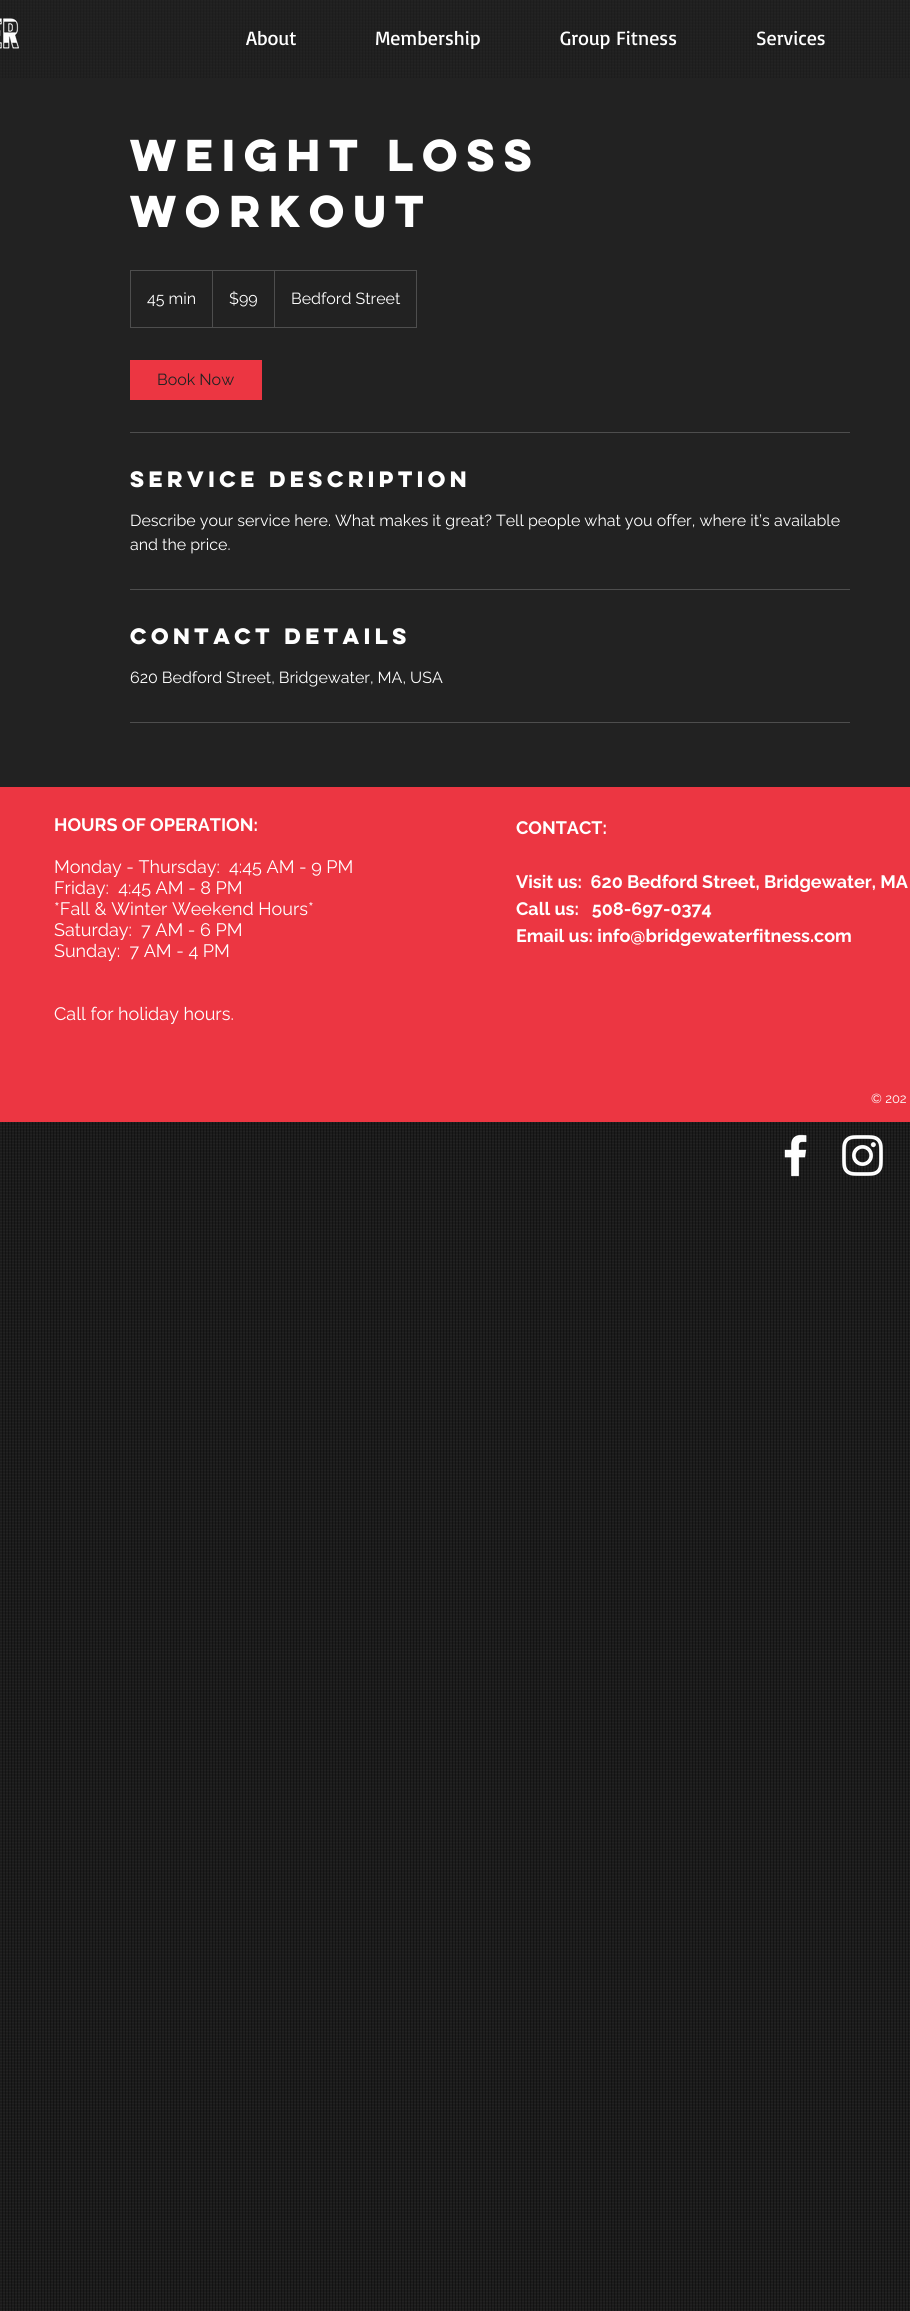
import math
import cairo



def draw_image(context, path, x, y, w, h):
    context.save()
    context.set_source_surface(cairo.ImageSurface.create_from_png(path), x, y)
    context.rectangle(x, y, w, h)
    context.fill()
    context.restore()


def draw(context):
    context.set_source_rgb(34 / 255, 34 / 255, 34 / 255)
    context.paint()
    draw_image(context, "images/1.png", 0, 0, 910, 2311)
    context.set_source_rgba(35 / 255, 35 / 255, 35 / 255, 0.6)
    context.rectangle(0, 0, 910, 78)
    context.fill()
    draw_image(context, "images/2.png", 0, 18, 19, 31)
    context.set_source_rgb(34 / 255, 34 / 255, 34 / 255)
    context.rectangle(0, 78, 910, 709)
    context.fill()
    context.rectangle(130.5, 270.5, 286, 57)
    context.set_source_rgb(78 / 255, 78 / 255, 78 / 255)
    context.set_line_width(1)
    context.stroke()
    context.new_path()
    context.move_to(212, 327)
    context.line_to(212, 270)
    context.line_to(213, 271)
    context.line_to(213, 327)
    context.close_path()
    context.fill()
    context.new_path()
    context.move_to(274, 327)
    context.line_to(274, 270)
    context.line_to(275, 271)
    context.line_to(275, 327)
    context.close_path()
    context.fill()
    context.set_source_rgb(236 / 255, 54 / 255, 66 / 255)
    context.rectangle(130, 360, 132, 40)
    context.fill()
    context.set_source_rgb(78 / 255, 78 / 255, 78 / 255)
    context.rectangle(130, 432, 720, 1)
    context.fill()
    context.rectangle(130, 589, 720, 1)
    context.fill()
    context.rectangle(130, 722, 720, 1)
    context.fill()
    context.set_source_rgb(236 / 255, 54 / 255, 66 / 255)
    context.rectangle(0, 787, 910, 335)
    context.fill()
    draw_image(context, "images/3.png", 784, 1134, 23, 43)
    draw_image(context, "images/4.png", 842, 1135, 41, 41)
    context.select_font_face("Basic")
    context.set_font_size(20)
    context.set_source_rgb(1, 1, 1)
    context.move_to(246, 45)
    context.show_text("About")
    context.move_to(375, 45)
    context.show_text("Membership")
    context.move_to(560, 45)
    context.show_text("Group Fitness")
    context.move_to(756, 45)
    context.show_text("Services")
    context.select_font_face("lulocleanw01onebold", cairo.FontSlant.NORMAL, cairo.FontWeight.BOLD)
    context.set_font_size(40)
    context.move_to(130, 171)
    context.show_text("Weight Loss")
    context.move_to(130, 227)
    context.show_text("Workout")
    context.select_font_face("Raleway")
    context.set_font_size(16)
    context.move_to(147, 304)
    context.show_text("45 min")
    context.move_to(229, 304)
    context.show_text("$99")
    context.move_to(291, 304)
    context.show_text("Bedford Street")
    context.set_source_rgb(34 / 255, 34 / 255, 34 / 255)
    context.move_to(157, 385)
    context.show_text("Book Now")
    context.select_font_face("lulocleanw01onebold", cairo.FontSlant.NORMAL, cairo.FontWeight.BOLD)
    context.set_font_size(20)
    context.set_source_rgb(1, 1, 1)
    context.move_to(130, 487)
    context.show_text("Service Description")
    context.select_font_face("Raleway")
    context.set_font_size(16)
    context.move_to(130, 526)
    context.show_text("Describe your service here. What makes it great? Tell people what you offer, where it’s available")
    context.move_to(130, 550)
    context.show_text("and the price.")
    context.select_font_face("lulocleanw01onebold", cairo.FontSlant.NORMAL, cairo.FontWeight.BOLD)
    context.set_font_size(20)
    context.move_to(130, 644)
    context.show_text("Contact Details")
    context.select_font_face("Raleway")
    context.set_font_size(16)
    context.move_to(130, 683)
    context.show_text("620 Bedford Street, Bridgewater, MA, USA")
    context.select_font_face("Raleway", cairo.FontSlant.NORMAL, cairo.FontWeight.BOLD)
    context.set_font_size(18)
    context.move_to(54, 831)
    context.show_text("HOURS OF OPERATION:")
    context.select_font_face("Raleway")
    context.move_to(54, 873)
    context.show_text("Monday - Thursday:  4:45 AM - 9 PM")
    context.move_to(54, 894)
    context.show_text("Friday:  4:45 AM - 8 PM")
    context.move_to(54, 915)
    context.show_text("*Fall & Winter Weekend Hours*")
    context.move_to(54, 936)
    context.show_text("Saturday:  7 AM - 6 PM")
    context.move_to(54, 957)
    context.show_text("Sunday:  7 AM - 4 PM")
    context.move_to(54, 1020)
    context.show_text("Call for holiday hours.")
    context.select_font_face("Raleway", cairo.FontSlant.NORMAL, cairo.FontWeight.BOLD)
    context.move_to(516, 834)
    context.show_text("CONTACT:")
    context.move_to(516, 888)
    context.show_text("Visit us:  620 Bedford Street, Bridgewater, MA")
    context.move_to(516, 915)
    context.show_text("Call us:   508-697-0374")
    context.move_to(516, 942)
    context.show_text("Email us: info@bridgewaterfitness.com")
    context.select_font_face("Raleway")
    context.set_font_size(13)
    context.move_to(871, 1103)
    context.show_text("© 202")


surface = cairo.ImageSurface(cairo.Format.RGB24, 910, 2311)
context = cairo.Context(surface)
options = cairo.FontOptions()
options.set_hint_metrics(cairo.HintMetrics.OFF)
options.set_hint_style(cairo.HintStyle.NONE)
context.set_font_options(options)
context.set_miter_limit(4)
draw(context)
surface.write_to_png("out.png")
